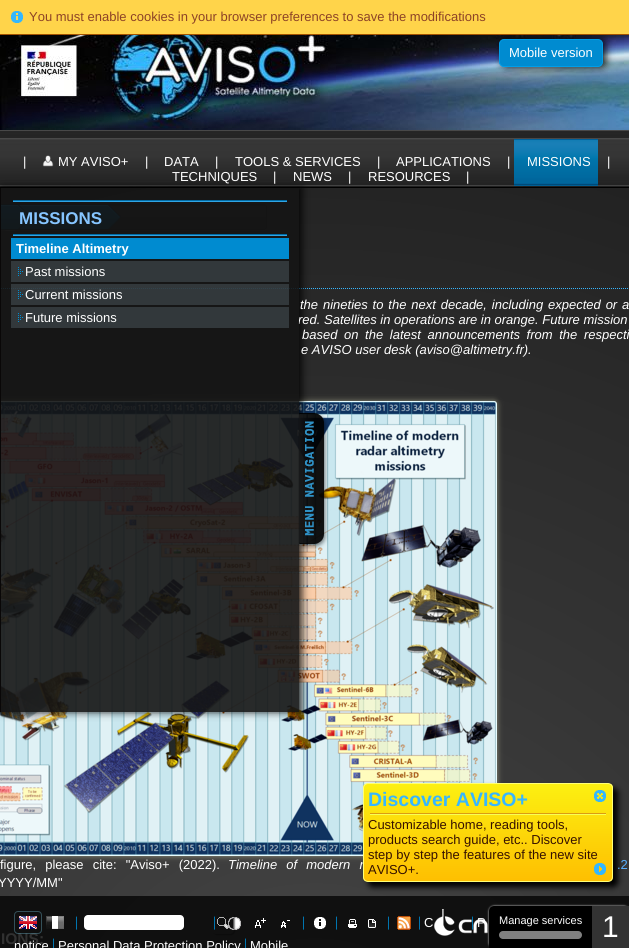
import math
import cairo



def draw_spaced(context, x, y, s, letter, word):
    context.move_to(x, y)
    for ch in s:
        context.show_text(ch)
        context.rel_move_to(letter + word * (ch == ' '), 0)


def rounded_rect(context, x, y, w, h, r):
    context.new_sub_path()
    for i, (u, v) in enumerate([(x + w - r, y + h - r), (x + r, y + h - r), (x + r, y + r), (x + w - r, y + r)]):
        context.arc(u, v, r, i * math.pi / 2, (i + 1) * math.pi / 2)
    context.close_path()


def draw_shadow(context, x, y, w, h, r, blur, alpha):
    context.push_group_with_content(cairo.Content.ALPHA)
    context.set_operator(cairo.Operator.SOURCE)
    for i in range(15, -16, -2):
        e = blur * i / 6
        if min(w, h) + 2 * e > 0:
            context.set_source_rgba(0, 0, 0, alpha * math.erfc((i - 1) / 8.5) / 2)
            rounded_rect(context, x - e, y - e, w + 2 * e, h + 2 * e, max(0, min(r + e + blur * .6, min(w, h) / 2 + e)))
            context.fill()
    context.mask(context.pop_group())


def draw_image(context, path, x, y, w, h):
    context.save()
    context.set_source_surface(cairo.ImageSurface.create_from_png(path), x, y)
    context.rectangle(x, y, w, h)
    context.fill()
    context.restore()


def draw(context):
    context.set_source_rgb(0, 0, 0)
    context.paint()
    draw_image(context, "images/1.png", 0, 35, 629, 95)
    draw_shadow(context, 502, 39, 104, 28, 5, 4, 0.84)
    context.set_source_rgb(0, 139 / 255, 208 / 255)
    rounded_rect(context, 499.5, 39.5, 103, 27, 4.5)
    context.fill_preserve()
    context.set_source_rgb(0, 158 / 255, 232 / 255)
    context.set_line_width(1)
    context.stroke()
    draw_image(context, "images/5.png", 0, 130, 629, 57)
    draw_image(context, "images/6.png", 42, 155, 12, 12)
    draw_image(context, "images/7.png", 514, 139, 84, 47)
    gradient = cairo.RadialGradient(315, 1099, 0, 315, 1099, 964)
    gradient.add_color_stop_rgba(0, 72 / 255, 72 / 255, 72 / 255, 1)
    gradient.add_color_stop_rgba(1, 34 / 255, 34 / 255, 34 / 255, 1)
    context.set_source(gradient)
    context.rectangle(0, 188, 629, 708)
    context.fill()
    gradient = cairo.RadialGradient(315, 1099, 0, 315, 1099, 964)
    gradient.add_color_stop_rgba(0, 18 / 255, 18 / 255, 18 / 255, 1)
    gradient.add_color_stop_rgba(1, 9 / 255, 9 / 255, 9 / 255, 1)
    context.set_source(gradient)
    context.rectangle(0, 896, 629, 52)
    context.fill()
    context.save()
    context.rectangle(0, 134, 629, 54)
    context.clip()
    context.set_source_rgb(0, 0, 0)
    draw_shadow(context, -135, 188, 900, 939, 0, 59.5, 0.11)
    context.restore()
    context.set_source_rgb(1, 212 / 255, 74 / 255)
    context.rectangle(0, 0, 629, 34)
    context.fill()
    context.set_source_rgb(163 / 255, 82 / 255, 0)
    context.rectangle(0, 34, 629, 1)
    context.fill()
    draw_image(context, "images/2.png", 11, 11, 12, 12)
    context.set_source_rgb(1, 1, 207 / 255)
    draw_shadow(context, -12, 401, 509, 455, 3, 3, 0.44)
    context.set_source_rgb(1, 1, 1)
    rounded_rect(context, -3.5, 401.5, 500, 454, 2.5)
    context.fill_preserve()
    context.set_source_rgb(231 / 255, 252 / 255, 1)
    context.stroke()
    draw_image(context, "images/17.png", 0, 402, 496, 453)
    context.set_source_rgb(0, 0, 0)
    draw_shadow(context, 368, 788, 250, 99, 5, 3, 1)
    draw_image(context, "images/12.png", 1, 204, 14, 27)
    draw_image(context, "images/14.png", 4, 204, 101, 27)
    draw_image(context, "images/13.png", 1, 205, 30, 24)
    draw_image(context, "images/16.png", 105, 204, 162, 27)
    draw_image(context, "images/15.png", 89, 204, 32, 25)
    context.new_path()
    context.move_to(-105, 288.5)
    context.line_to(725, 288.5)
    context.set_source_rgb(54 / 255, 182 / 255, 1)
    context.set_dash([1, 1])
    context.stroke()
    context.save()
    context.set_fill_rule(cairo.FillRule.EVEN_ODD)
    context.new_path()
    context.move_to(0, 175)
    context.line_to(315, 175)
    context.line_to(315, 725)
    context.line_to(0, 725)
    context.close_path()
    context.move_to(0, 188)
    context.line_to(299, 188)
    context.line_to(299, 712)
    context.line_to(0, 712)
    context.close_path()
    context.clip()
    context.set_source_rgb(0, 0, 0)
    draw_shadow(context, 3, 188, 299, 524, 0, 4, 0.84)
    context.restore()
    context.set_source_rgb(9 / 255, 7 / 255, 7 / 255)
    context.rectangle(0, 188, 1, 524)
    context.fill()
    context.set_source_rgb(1, 1, 1)
    rounded_rect(context, 84, 915, 100, 15, 4)
    context.fill()
    draw_image(context, "images/23.png", 214, 916, 1, 14)
    draw_image(context, "images/24.png", 228, 917, 13, 13)
    context.save()
    context.set_fill_rule(cairo.FillRule.EVEN_ODD)
    context.new_path()
    context.move_to(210, 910)
    context.line_to(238, 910)
    context.line_to(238, 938)
    context.line_to(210, 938)
    context.close_path()
    context.move_to(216, 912)
    context.line_to(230, 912)
    context.curve_to(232, 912, 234, 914, 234, 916)
    context.line_to(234, 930)
    context.curve_to(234, 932, 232, 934, 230, 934)
    context.line_to(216, 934)
    context.curve_to(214, 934, 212, 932, 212, 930)
    context.line_to(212, 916)
    context.curve_to(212, 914, 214, 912, 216, 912)
    context.close_path()
    context.clip()
    context.set_source_rgb(0, 0, 0)
    draw_shadow(context, 213, 913, 22, 22, 4, 0.5, 0.29)
    context.restore()
    draw_image(context, "images/19.png", 217, 917, 12, 12)
    draw_image(context, "images/21.png", 46, 916, 18, 13)
    draw_image(context, "images/22.png", 76, 916, 1, 14)
    draw_image(context, "images/25.png", 255, 918, 11, 10)
    draw_image(context, "images/26.png", 281, 920, 9, 8)
    draw_image(context, "images/27.png", 303, 916, 1, 14)
    draw_image(context, "images/28.png", 314, 917, 12, 12)
    draw_image(context, "images/27.png", 336, 916, 1, 14)
    draw_image(context, "images/29.png", 348, 919, 9, 9)
    draw_image(context, "images/30.png", 368, 919, 8, 9)
    draw_image(context, "images/23.png", 388, 916, 1, 14)
    draw_image(context, "images/31.png", 397, 916, 14, 14)
    draw_image(context, "images/23.png", 419, 916, 1, 14)
    draw_image(context, "images/32.png", 472, 916, 1, 14)
    draw_image(context, "images/33.png", 53, 938, 1, 10)
    draw_image(context, "images/34.png", 245, 938, 1, 10)
    context.select_font_face("Liberation Sans")
    context.set_font_size(13)
    context.set_source_rgb(141 / 255, 67 / 255, 38 / 255)
    context.move_to(29, 21)
    context.show_text("You must enable cookies in your browser preferences to save the modifications")
    context.set_source_rgb(1, 1, 1)
    context.move_to(509, 57)
    context.show_text("Mobile version")
    context.move_to(23, 166)
    context.show_text("|")
    context.move_to(58, 166)
    context.show_text("MY AVISO+")
    context.move_to(145, 166)
    context.show_text("|")
    context.move_to(215, 166)
    context.show_text("|")
    context.move_to(235, 166)
    context.show_text("TOOLS & SERVICES")
    context.move_to(377, 166)
    context.show_text("|")
    context.move_to(396, 166)
    context.show_text("APPLICATIONS")
    context.move_to(507, 166)
    context.show_text("|")
    context.move_to(164, 166)
    context.show_text("DATA")
    context.move_to(527, 166)
    context.show_text("MISSIONS")
    context.move_to(607, 166)
    context.show_text("|")
    context.move_to(172, 181)
    context.show_text("TECHNIQUES")
    context.move_to(273, 181)
    context.show_text("|")
    context.move_to(293, 181)
    context.show_text("NEWS")
    context.move_to(348, 181)
    context.show_text("|")
    context.move_to(368, 181)
    context.show_text("RESOURCES")
    context.move_to(466, 181)
    context.show_text("|")
    context.select_font_face("Liberation Sans", cairo.FontSlant.ITALIC)
    draw_spaced(context, 300, 309, "the nineties to the next decade, including expected or a", 0, 1.25)
    context.move_to(298, 324)
    context.show_text("red. Satellites in operations are in orange. Future mission")
    context.set_source_rgba(20 / 255, 20 / 255, 20 / 255, 0.9)
    context.rectangle(1, 188, 298, 524)
    context.fill()
    draw_image(context, "images/11.png", 298, 412, 30, 137)
    context.set_source_rgba(199 / 255, 236 / 255, 1, 0.16)
    context.rectangle(11, 307, 278, 21)
    context.fill()
    context.select_font_face("Liberation Sans")
    context.set_source_rgb(1, 1, 1)
    context.move_to(25, 322)
    context.show_text("Future missions")
    draw_image(context, "images/10.png", 18, 313, 5, 9)
    context.set_source_rgba(199 / 255, 236 / 255, 1, 0.16)
    context.rectangle(11, 284, 278, 21)
    context.fill()
    context.set_source_rgb(1, 1, 1)
    context.move_to(25, 299)
    context.show_text("Current missions")
    draw_image(context, "images/9.png", 18, 290, 5, 9)
    context.set_source_rgba(199 / 255, 236 / 255, 1, 0.16)
    context.rectangle(11, 261, 278, 21)
    context.fill()
    context.set_source_rgb(1, 1, 1)
    context.move_to(25, 276)
    context.show_text("Past missions")
    draw_image(context, "images/8.png", 18, 267, 5, 9)
    context.set_source_rgb(0, 139 / 255, 208 / 255)
    context.rectangle(11, 238, 278, 21)
    context.fill()
    context.select_font_face("Liberation Sans", cairo.FontSlant.NORMAL, cairo.FontWeight.BOLD)
    context.set_source_rgb(1, 1, 1)
    context.move_to(16, 253)
    context.show_text("Timeline Altimetry")
    context.set_font_size(17)
    context.set_source_rgb(134 / 255, 197 / 255, 1)
    context.move_to(19, 224)
    context.show_text("MISSIONS")
    context.set_source_rgb(49 / 255, 165 / 255, 228 / 255)
    context.rectangle(13, 235, 274, 1)
    context.fill()
    context.set_source_rgb(0, 107 / 255, 164 / 255)
    context.rectangle(13, 234, 274, 1)
    context.fill()
    context.set_source_rgb(49 / 255, 165 / 255, 228 / 255)
    context.rectangle(13, 201, 274, 1)
    context.fill()
    context.set_source_rgb(0, 107 / 255, 164 / 255)
    context.rectangle(13, 200, 274, 1)
    context.fill()
    context.select_font_face("Liberation Sans", cairo.FontSlant.ITALIC)
    context.set_font_size(13)
    context.set_source_rgb(1, 1, 1)
    draw_spaced(context, 302, 339, "based on the latest announcements from the respecti", 0, 3)
    context.move_to(301, 354)
    context.show_text("e AVISO user desk (aviso@altimetry.fr).")
    context.select_font_face("Liberation Sans")
    draw_spaced(context, 0, 869, "figure, please cite: \"Aviso+ (2022).", 0, 5.5)
    context.select_font_face("Liberation Sans", cairo.FontSlant.ITALIC)
    draw_spaced(context, 228, 869, "Timeline of modern r", 0, 5.5)
    context.save()
    rounded_rect(context, 363, 783, 250, 99, 5)
    context.clip()
    gradient = cairo.LinearGradient(488, 784, 488, 881)
    gradient.add_color_stop_rgba(0, 252 / 255, 240 / 255, 17 / 255, 1)
    gradient.add_color_stop_rgba(1, 254 / 255, 191 / 255, 1 / 255, 1)
    context.set_source(gradient)
    context.rectangle(363, 784, 250, 97)
    context.fill()
    context.restore()
    rounded_rect(context, 363.5, 783.5, 249, 98, 4.5)
    context.set_source_rgb(1, 1, 119 / 255)
    context.set_dash([])
    context.stroke()
    draw_image(context, "images/4.png", 594, 863, 12, 12)
    draw_image(context, "images/3.png", 594, 790, 12, 12)
    context.select_font_face("Liberation Sans")
    context.set_source_rgb(54 / 255, 17 / 255, 0)
    context.move_to(368, 874)
    context.show_text("AVISO+.")
    context.move_to(368, 859)
    context.show_text("step by step the features of the new site")
    context.move_to(368, 844)
    context.show_text("products search guide, etc.. Discover")
    context.move_to(368, 829)
    context.show_text("Customizable home, reading tools,")
    context.select_font_face("Liberation Sans", cairo.FontSlant.NORMAL, cairo.FontWeight.BOLD)
    context.set_font_size(19.5)
    context.set_source_rgb(54 / 255, 182 / 255, 1)
    context.move_to(368, 806)
    context.show_text("Discover AVISO+")
    context.set_source_rgb(248 / 255, 1, 86 / 255)
    context.rectangle(370, 814, 236, 1)
    context.fill()
    context.set_source_rgb(219 / 255, 155 / 255, 18 / 255)
    context.rectangle(370, 813, 236, 1)
    context.fill()
    context.select_font_face("Liberation Sans")
    context.set_font_size(13)
    context.set_source_rgb(89 / 255, 176 / 255, 1)
    context.move_to(617, 869)
    context.show_text(".2")
    context.set_source_rgb(1, 1, 1)
    context.move_to(-2, 887)
    context.show_text("YYYY/MM\"")
    context.select_font_face("Liberation Sans", cairo.FontSlant.NORMAL, cairo.FontWeight.BOLD)
    context.set_font_size(15.5)
    context.set_source_rgb(49 / 255, 49 / 255, 49 / 255)
    context.move_to(1, 944)
    context.show_text("IONS:")
    rounded_rect(context, 14.5, 911.5, 27, 22, 3.5)
    context.set_source_rgba(124 / 255, 207 / 255, 233 / 255, 0.34)
    context.stroke()
    draw_image(context, "images/20.png", 19, 916, 18, 13)
    context.select_font_face("Liberation Sans")
    context.set_font_size(13)
    context.set_source_rgb(1, 1, 1)
    context.move_to(424, 927)
    context.show_text("C")
    context.move_to(477, 927)
    context.show_text("P")
    draw_image(context, "images/18.png", 434, 909, 54, 27)
    context.move_to(14, 950)
    context.show_text("notice")
    context.move_to(58, 950)
    context.show_text("Personal Data Protection Policy")
    context.move_to(250, 950)
    context.show_text("Mobile")
    context.set_source_rgb(221 / 255, 221 / 255, 221 / 255)
    draw_shadow(context, 489, 906, 140, 42, 5, 1, 1)
    context.set_source_rgb(0, 0, 0)
    context.new_path()
    context.move_to(494, 906)
    context.line_to(629, 906)
    context.line_to(629, 948)
    context.line_to(489, 948)
    context.line_to(489, 911)
    context.curve_to(489, 908, 491, 906, 494, 906)
    context.close_path()
    context.fill()
    context.set_font_size(11)
    context.set_source_rgb(1, 1, 1)
    context.move_to(499, 924)
    context.show_text("Manage services")
    context.set_source_rgb(128 / 255, 128 / 255, 128 / 255)
    rounded_rect(context, 499, 931, 83, 8, 4)
    context.fill()
    context.set_source_rgb(51 / 255, 51 / 255, 51 / 255)
    context.rectangle(592, 906, 37, 42)
    context.fill()
    context.set_font_size(30)
    context.set_source_rgb(1, 1, 1)
    context.move_to(602, 937)
    context.show_text("1")


surface = cairo.ImageSurface(cairo.Format.RGB24, 629, 948)
context = cairo.Context(surface)
options = cairo.FontOptions()
options.set_hint_metrics(cairo.HintMetrics.OFF)
options.set_hint_style(cairo.HintStyle.NONE)
context.set_font_options(options)
context.set_miter_limit(4)
draw(context)
surface.write_to_png("out.png")
